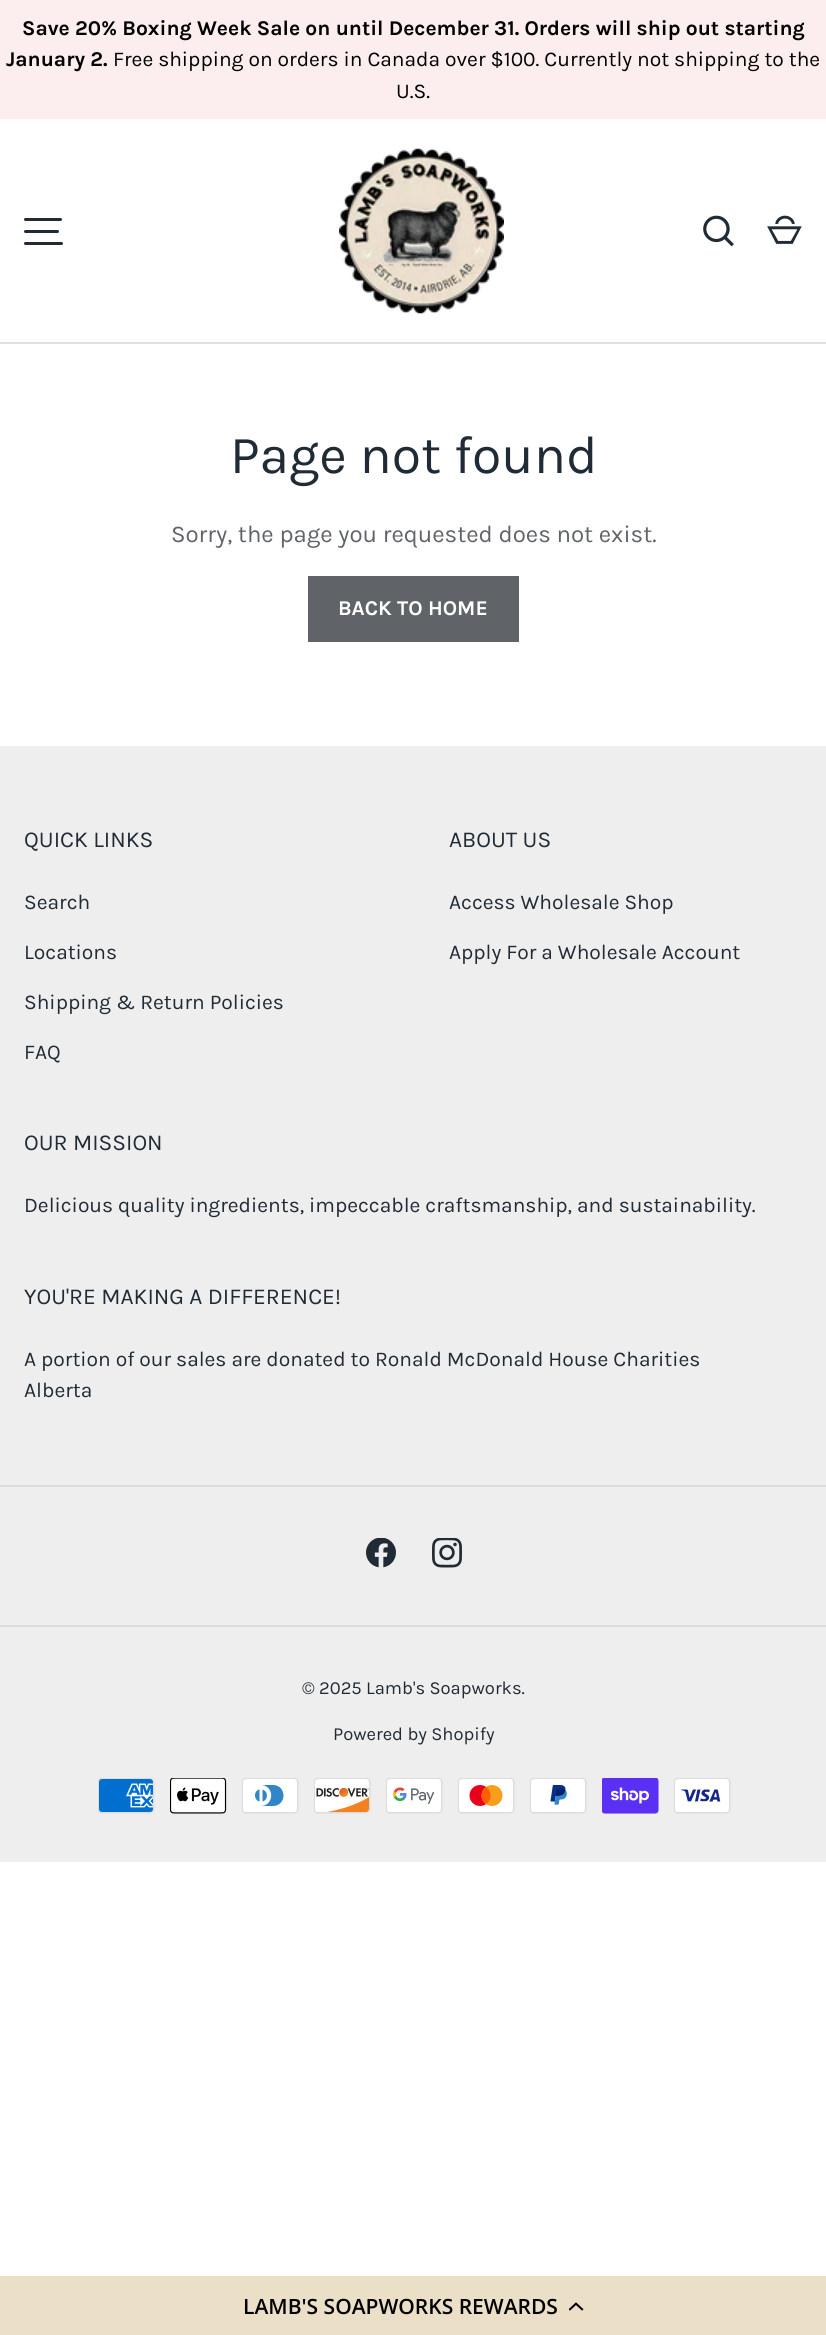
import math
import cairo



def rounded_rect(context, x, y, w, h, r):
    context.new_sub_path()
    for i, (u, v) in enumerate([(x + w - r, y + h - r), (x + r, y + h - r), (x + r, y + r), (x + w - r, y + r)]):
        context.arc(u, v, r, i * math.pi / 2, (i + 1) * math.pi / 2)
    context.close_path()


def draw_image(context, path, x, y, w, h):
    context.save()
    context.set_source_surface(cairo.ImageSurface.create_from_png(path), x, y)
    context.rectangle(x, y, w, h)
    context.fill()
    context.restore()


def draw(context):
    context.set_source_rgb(1, 1, 1)
    context.paint()
    context.set_source_rgb(252 / 255, 237 / 255, 238 / 255)
    context.rectangle(0, 0, 826, 119)
    context.fill()
    context.set_source_rgb(33 / 255, 43 / 255, 54 / 255)
    rounded_rect(context, 24, 218, 38, 3, 1.5)
    context.fill()
    rounded_rect(context, 24, 230, 35, 3, 1.5)
    context.fill()
    rounded_rect(context, 24, 242, 39, 3, 1.5)
    context.fill()
    draw_image(context, "images/1.png", 339, 148, 165, 166)
    draw_image(context, "images/2.png", 703, 215, 31, 32)
    draw_image(context, "images/3.png", 767, 215, 35, 29)
    context.set_source_rgb(222 / 255, 223 / 255, 225 / 255)
    context.rectangle(0, 342, 826, 2)
    context.fill()
    context.set_source_rgb(96 / 255, 100 / 255, 104 / 255)
    context.rectangle(308, 576, 211, 66)
    context.fill()
    context.set_source_rgb(238 / 255, 238 / 255, 238 / 255)
    context.rectangle(0, 746, 826, 1116)
    context.fill()
    context.set_source_rgb(218 / 255, 219 / 255, 220 / 255)
    context.rectangle(0, 1485, 826, 2)
    context.fill()
    draw_image(context, "images/4.png", 366, 1538, 30, 30)
    draw_image(context, "images/5.png", 432, 1538, 30, 30)
    context.rectangle(0, 1625, 826, 2)
    context.fill()
    draw_image(context, "images/6.png", 98, 1778, 57, 36)
    draw_image(context, "images/7.png", 170, 1778, 57, 36)
    draw_image(context, "images/8.png", 242, 1778, 57, 36)
    draw_image(context, "images/9.png", 314, 1778, 57, 36)
    draw_image(context, "images/10.png", 386, 1778, 57, 36)
    draw_image(context, "images/11.png", 458, 1778, 57, 36)
    draw_image(context, "images/12.png", 530, 1778, 57, 36)
    draw_image(context, "images/13.png", 602, 1778, 57, 36)
    draw_image(context, "images/14.png", 674, 1778, 57, 36)
    context.set_source_rgb(235 / 255, 223 / 255, 200 / 255)
    context.rectangle(0, 2276, 826, 59)
    context.fill()
    draw_image(context, "images/15.png", 569, 2302, 15, 9)
    context.select_font_face("Karla", cairo.FontSlant.NORMAL, cairo.FontWeight.BOLD)
    context.set_font_size(21)
    context.set_source_rgb(0, 0, 0)
    context.move_to(22, 35)
    context.show_text("Save 20% Boxing Week Sale on until December 31. Orders will ship out starting")
    context.move_to(6, 66)
    context.show_text("January 2.")
    context.select_font_face("Karla")
    context.move_to(113, 66)
    context.show_text("Free shipping on orders in Canada over $100. Currently not shipping to the")
    context.move_to(396, 98)
    context.show_text("U.S.")
    context.set_font_size(53.5)
    context.set_source_rgb(33 / 255, 43 / 255, 54 / 255)
    context.move_to(230, 473)
    context.show_text("Page not found")
    context.set_font_size(24)
    context.set_source_rgb(96 / 255, 100 / 255, 104 / 255)
    context.move_to(171, 542)
    context.show_text("Sorry, the page you requested does not exist.")
    context.select_font_face("Karla", cairo.FontSlant.NORMAL, cairo.FontWeight.BOLD)
    context.set_font_size(21)
    context.set_source_rgb(1, 1, 1)
    context.move_to(338, 615)
    context.show_text("BACK TO HOME")
    context.select_font_face("Karla")
    context.set_font_size(22.75)
    context.set_source_rgb(33 / 255, 43 / 255, 54 / 255)
    context.move_to(24, 847)
    context.show_text("QUICK LINKS")
    context.set_font_size(21)
    context.move_to(24, 909)
    context.show_text("Search")
    context.move_to(24, 959)
    context.show_text("Locations")
    context.move_to(24, 1009)
    context.show_text("Shipping & Return Policies")
    context.move_to(24, 1059)
    context.show_text("FAQ")
    context.set_font_size(22.75)
    context.move_to(449, 847)
    context.show_text("ABOUT US")
    context.set_font_size(21)
    context.move_to(449, 909)
    context.show_text("Access Wholesale Shop")
    context.move_to(449, 959)
    context.show_text("Apply For a Wholesale Account")
    context.set_font_size(22.75)
    context.move_to(24, 1150)
    context.show_text("OUR MISSION")
    context.set_font_size(21)
    context.move_to(24, 1212)
    context.show_text("Delicious quality ingredients, impeccable craftsmanship, and sustainability.")
    context.set_font_size(22.75)
    context.move_to(24, 1304)
    context.show_text("YOU'RE MAKING A DIFFERENCE!")
    context.set_font_size(21)
    context.move_to(24, 1366)
    context.show_text("A portion of our sales are donated to Ronald McDonald House Charities")
    context.move_to(24, 1397)
    context.show_text("Alberta")
    context.set_font_size(18.4)
    context.move_to(302, 1694)
    context.show_text("© 2025 Lamb's Soapworks.")
    context.move_to(333, 1740)
    context.show_text("Powered by Shopify")
    context.select_font_face("Open Sans SemiBold")
    context.set_font_size(21)
    context.set_source_rgb(0, 0, 0)
    context.move_to(243, 2314)
    context.show_text("LAMB'S SOAPWORKS REWARDS")


surface = cairo.ImageSurface(cairo.Format.RGB24, 826, 2335)
context = cairo.Context(surface)
options = cairo.FontOptions()
options.set_hint_metrics(cairo.HintMetrics.OFF)
options.set_hint_style(cairo.HintStyle.NONE)
context.set_font_options(options)
context.set_miter_limit(4)
draw(context)
surface.write_to_png("out.png")
